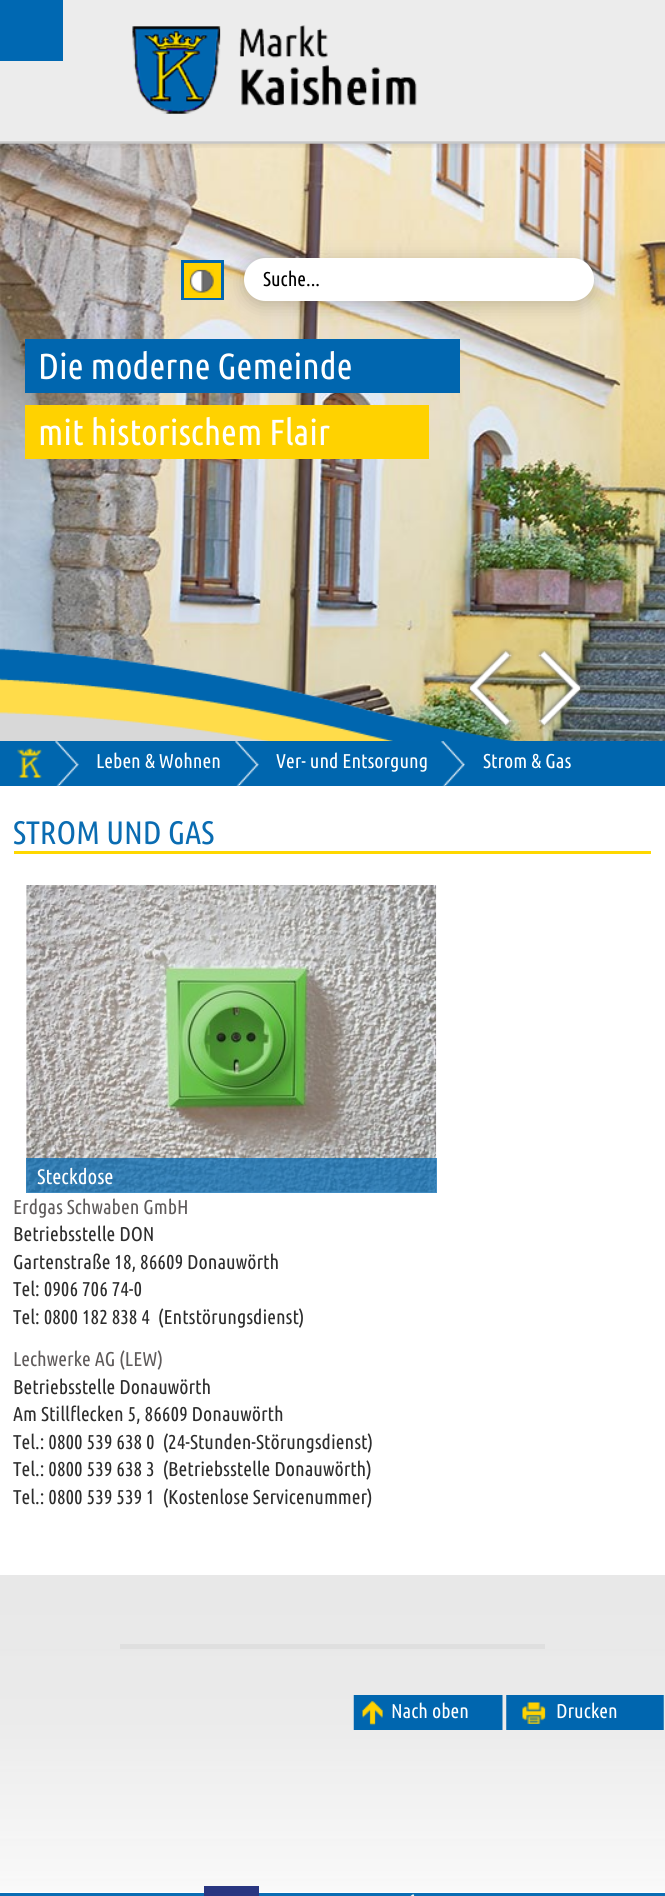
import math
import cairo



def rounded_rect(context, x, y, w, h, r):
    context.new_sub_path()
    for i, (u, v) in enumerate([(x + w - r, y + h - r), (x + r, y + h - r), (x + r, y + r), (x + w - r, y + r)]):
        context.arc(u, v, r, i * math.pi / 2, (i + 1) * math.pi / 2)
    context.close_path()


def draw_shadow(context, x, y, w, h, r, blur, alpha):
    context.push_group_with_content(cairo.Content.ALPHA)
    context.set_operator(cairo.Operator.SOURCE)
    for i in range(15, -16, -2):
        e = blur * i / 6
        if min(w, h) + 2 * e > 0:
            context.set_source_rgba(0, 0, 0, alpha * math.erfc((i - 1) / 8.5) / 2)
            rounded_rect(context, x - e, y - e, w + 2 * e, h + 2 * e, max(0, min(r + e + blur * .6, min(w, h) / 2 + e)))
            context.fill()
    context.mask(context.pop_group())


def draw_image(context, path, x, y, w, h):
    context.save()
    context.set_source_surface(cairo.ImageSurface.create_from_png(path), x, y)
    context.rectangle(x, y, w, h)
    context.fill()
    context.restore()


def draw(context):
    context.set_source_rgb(1, 1, 1)
    context.paint()
    draw_image(context, "images/3.png", 0, 143, 665, 598)
    draw_image(context, "images/1.png", 0, 0, 665, 148)
    context.set_source_rgb(0, 104 / 255, 178 / 255)
    context.rectangle(0, 0, 63, 61)
    context.fill()
    draw_image(context, "images/2.png", 132, 25, 285, 89)
    context.rectangle(182.5, 261.5, 40, 37)
    context.set_source_rgb(0, 102 / 255, 175 / 255)
    context.set_line_width(3)
    context.stroke()
    context.set_source_rgb(1, 210 / 255, 0)
    context.rectangle(184, 263, 37, 35)
    context.fill()
    draw_image(context, "images/4.png", 189, 269, 25, 24)
    context.set_source_rgb(0, 0, 0)
    draw_shadow(context, 244, 261, 350, 44, 22, 9.5, 0.2)
    context.set_source_rgb(1, 1, 1)
    rounded_rect(context, 244, 258, 350, 43, 21.5)
    context.fill()
    context.set_source_rgb(0, 102 / 255, 175 / 255)
    context.rectangle(25, 339, 435, 54)
    context.fill()
    context.set_source_rgb(1, 210 / 255, 0)
    context.rectangle(25, 405, 404, 54)
    context.fill()
    draw_image(context, "images/5.png", 0, 648, 514, 93)
    draw_image(context, "images/6.png", 0, 1575, 665, 317)
    draw_image(context, "images/7.png", 466, 648, 48, 80)
    draw_image(context, "images/8.png", 536, 648, 47, 81)
    context.set_source_rgb(0, 102 / 255, 174 / 255)
    context.rectangle(0, 741, 665, 45)
    context.fill()
    draw_image(context, "images/9.png", 55, 741, 24, 45)
    draw_image(context, "images/10.png", 17, 748, 25, 30)
    draw_image(context, "images/11.png", 235, 741, 24, 45)
    draw_image(context, "images/12.png", 441, 741, 24, 45)
    context.set_source_rgb(1, 216 / 255, 0)
    context.rectangle(14, 851, 637, 3)
    context.fill()
    draw_image(context, "images/13.png", 26, 885, 411, 308)
    context.set_source_rgba(15 / 255, 111 / 255, 179 / 255, 0.78)
    context.rectangle(26, 1158, 411, 35)
    context.fill()
    draw_image(context, "images/14.png", 353, 1695, 150, 35)
    draw_image(context, "images/15.png", 506, 1695, 158, 35)
    context.set_source_rgb(223 / 255, 223 / 255, 223 / 255)
    context.rectangle(120, 1644, 425, 5)
    context.fill()
    context.set_source_rgb(10 / 255, 108 / 255, 179 / 255)
    context.rectangle(0, 1893, 665, 3)
    context.fill()
    context.set_source_rgb(41 / 255, 54 / 255, 129 / 255)
    context.rectangle(204, 1886, 55, 10)
    context.fill()
    draw_image(context, "images/16.png", 410, 1894, 5, 2)
    context.select_font_face("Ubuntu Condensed")
    context.set_font_size(20)
    context.set_source_rgb(0, 0, 0)
    context.move_to(263, 286)
    context.show_text("Suche...")
    context.set_font_size(36.25)
    context.set_source_rgb(1, 1, 1)
    context.move_to(38, 379)
    context.show_text("Die moderne Gemeinde")
    context.move_to(38, 445)
    context.show_text("mit historischem Flair")
    context.set_font_size(20)
    context.move_to(96, 768)
    context.show_text("Leben & Wohnen")
    context.move_to(276, 768)
    context.show_text("Ver- und Entsorgung")
    context.move_to(483, 768)
    context.show_text("Strom & Gas")
    context.set_font_size(32.5)
    context.set_source_rgb(10 / 255, 108 / 255, 178 / 255)
    context.move_to(13, 844)
    context.show_text("STROM UND GAS")
    context.set_font_size(21)
    context.set_source_rgb(1, 1, 1)
    context.move_to(37, 1184)
    context.show_text("Steckdose")
    context.set_font_size(20)
    context.set_source_rgb(95 / 255, 91 / 255, 91 / 255)
    context.move_to(13, 1214)
    context.show_text("Erdgas Schwaben GmbH")
    context.set_source_rgb(45 / 255, 45 / 255, 45 / 255)
    context.move_to(13, 1241)
    context.show_text("Betriebsstelle DON")
    context.move_to(13, 1269)
    context.show_text("Gartenstraße 18, 86609 Donauwörth")
    context.move_to(13, 1296)
    context.show_text("Tel: 0906 706 74-0")
    context.move_to(13, 1324)
    context.show_text("Tel: 0800 182 838 4  (Entstörungsdienst)")
    context.set_source_rgb(95 / 255, 91 / 255, 91 / 255)
    context.move_to(13, 1366)
    context.show_text("Lechwerke AG (LEW)")
    context.set_source_rgb(45 / 255, 45 / 255, 45 / 255)
    context.move_to(13, 1394)
    context.show_text("Betriebsstelle Donauwörth")
    context.move_to(13, 1421)
    context.show_text("Am Stillflecken 5, 86609 Donauwörth")
    context.move_to(13, 1449)
    context.show_text("Tel.: 0800 539 638 0  (24-Stunden-Störungsdienst)")
    context.move_to(13, 1476)
    context.show_text("Tel.: 0800 539 638 3  (Betriebsstelle Donauwörth)")
    context.move_to(13, 1504)
    context.show_text("Tel.: 0800 539 539 1  (Kostenlose Servicenummer)")
    context.set_source_rgb(1, 1, 1)
    context.move_to(391, 1718)
    context.show_text("Nach oben")
    context.move_to(556, 1718)
    context.show_text("Drucken")


surface = cairo.ImageSurface(cairo.Format.RGB24, 665, 1896)
context = cairo.Context(surface)
options = cairo.FontOptions()
options.set_hint_metrics(cairo.HintMetrics.OFF)
options.set_hint_style(cairo.HintStyle.NONE)
context.set_font_options(options)
context.set_miter_limit(4)
draw(context)
surface.write_to_png("out.png")
